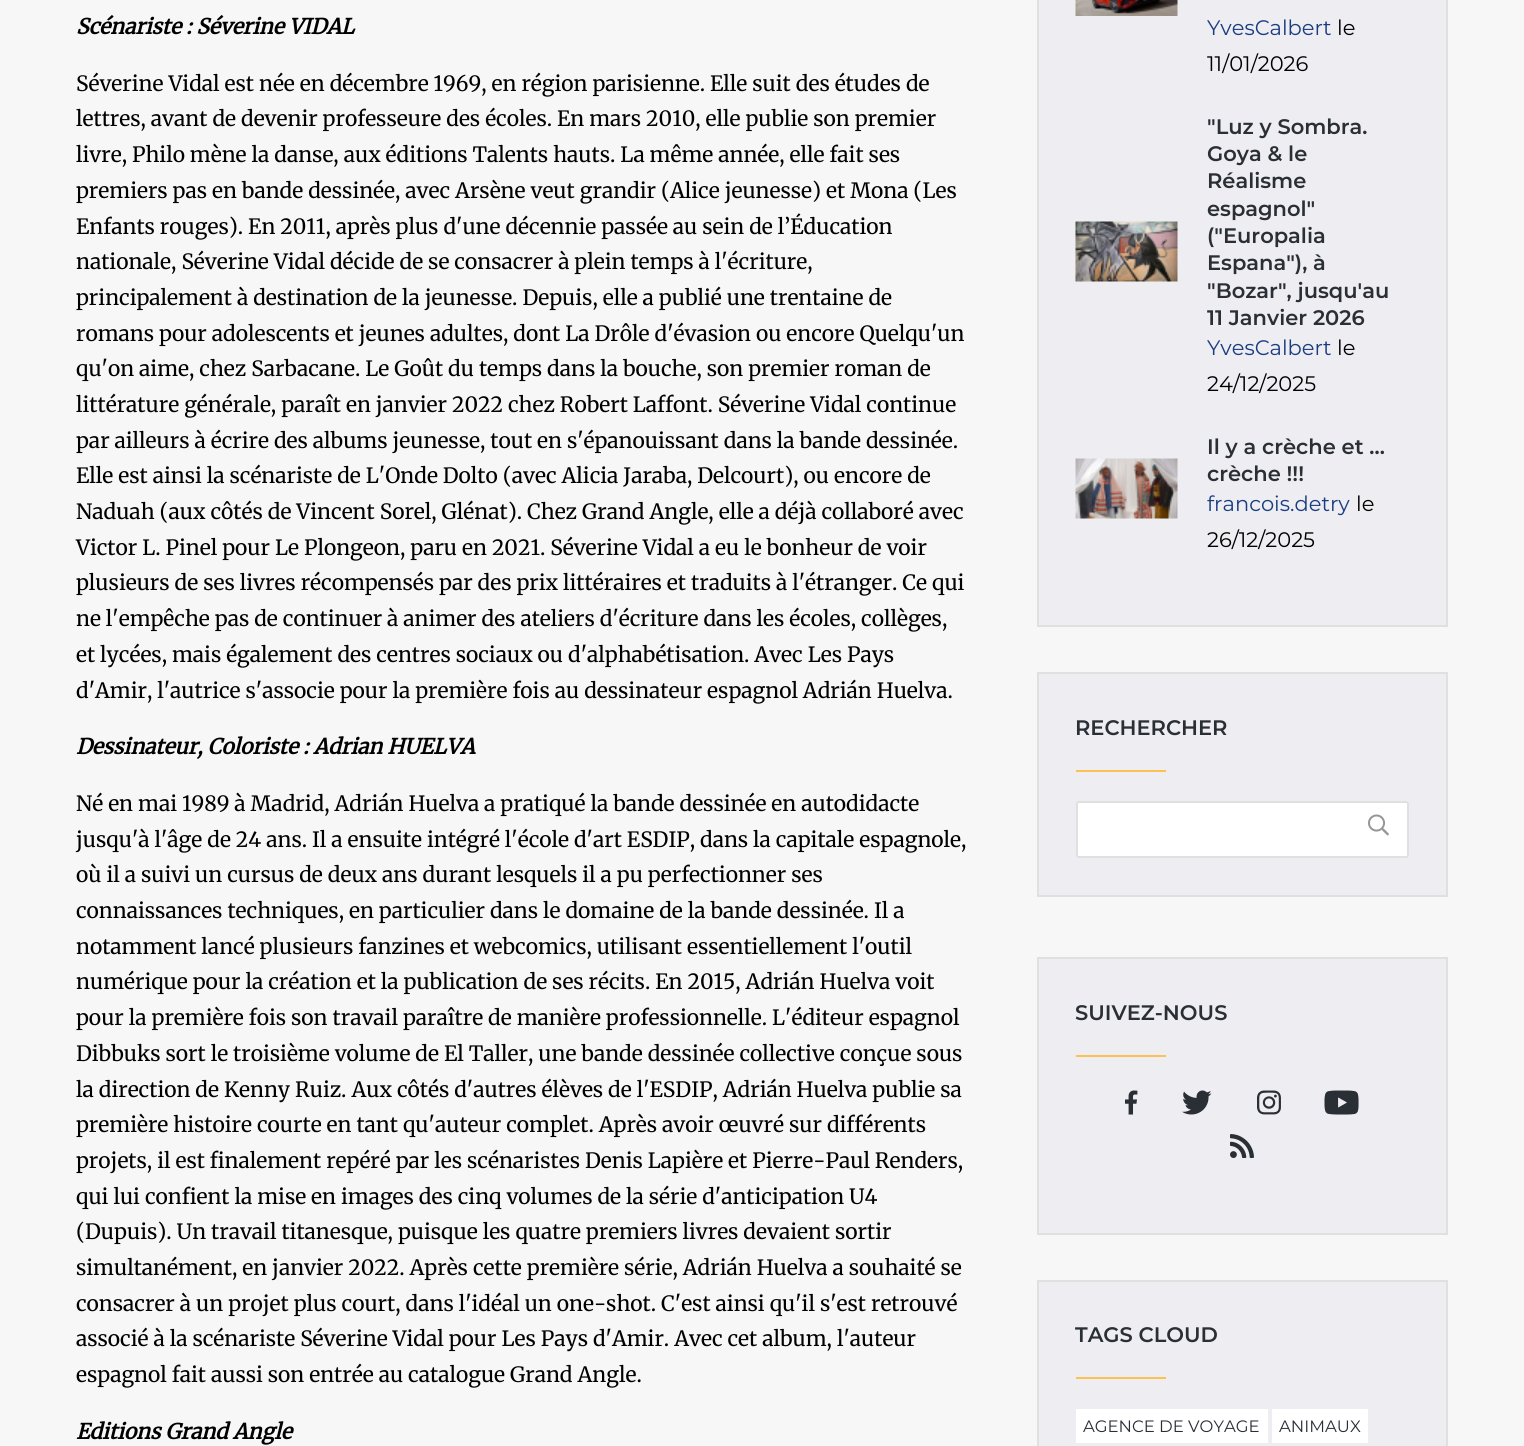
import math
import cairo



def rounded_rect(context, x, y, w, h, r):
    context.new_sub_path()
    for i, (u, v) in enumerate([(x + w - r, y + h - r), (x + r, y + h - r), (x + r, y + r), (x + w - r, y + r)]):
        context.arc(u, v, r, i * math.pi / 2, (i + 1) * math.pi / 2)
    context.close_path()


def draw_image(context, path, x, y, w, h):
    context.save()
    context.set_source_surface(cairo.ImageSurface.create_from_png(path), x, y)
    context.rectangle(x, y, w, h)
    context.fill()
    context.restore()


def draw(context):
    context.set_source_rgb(247 / 255, 247 / 255, 247 / 255)
    context.paint()
    context.set_source_rgb(238 / 255, 237 / 255, 241 / 255)
    context.rectangle(1038, -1, 409, 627)
    context.fill_preserve()
    context.set_source_rgb(225 / 255, 224 / 255, 224 / 255)
    context.stroke()
    draw_image(context, "images/1.png", 1075, 0, 103, 16)
    draw_image(context, "images/2.png", 1075, 221, 103, 61)
    draw_image(context, "images/3.png", 1075, 458, 103, 61)
    context.set_source_rgb(238 / 255, 237 / 255, 241 / 255)
    context.rectangle(1038, 673, 409, 223)
    context.fill_preserve()
    context.set_source_rgb(225 / 255, 224 / 255, 224 / 255)
    context.stroke()
    context.set_source_rgb(253 / 255, 193 / 255, 83 / 255)
    context.rectangle(1076, 770, 90, 2)
    context.fill()
    context.set_source_rgb(1, 1, 1)
    rounded_rect(context, 1077, 802, 331, 55, 2)
    context.fill_preserve()
    context.set_source_rgb(225 / 255, 224 / 255, 224 / 255)
    context.stroke()
    draw_image(context, "images/4.png", 1368, 814, 21, 22)
    context.set_source_rgb(238 / 255, 237 / 255, 241 / 255)
    context.rectangle(1038, 958, 409, 276)
    context.fill_preserve()
    context.set_source_rgb(225 / 255, 224 / 255, 224 / 255)
    context.stroke()
    context.set_source_rgb(253 / 255, 193 / 255, 83 / 255)
    context.rectangle(1076, 1055, 90, 2)
    context.fill()
    draw_image(context, "images/5.png", 1125, 1090, 13, 25)
    draw_image(context, "images/6.png", 1182, 1090, 30, 25)
    draw_image(context, "images/7.png", 1257, 1090, 24, 25)
    draw_image(context, "images/8.png", 1324, 1090, 35, 25)
    draw_image(context, "images/9.png", 1230, 1134, 24, 24)
    context.set_source_rgb(238 / 255, 237 / 255, 241 / 255)
    context.rectangle(1038, 1281, 409, 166)
    context.fill_preserve()
    context.set_source_rgb(225 / 255, 224 / 255, 224 / 255)
    context.stroke()
    context.set_source_rgb(253 / 255, 193 / 255, 83 / 255)
    context.rectangle(1076, 1377, 90, 2)
    context.fill()
    context.set_source_rgb(1, 1, 1)
    context.rectangle(1076, 1409, 192, 34)
    context.fill()
    context.rectangle(1272, 1409, 96, 34)
    context.fill()
    context.select_font_face("Merriweather", cairo.FontSlant.ITALIC, cairo.FontWeight.BOLD)
    context.set_font_size(21)
    context.set_source_rgb(0, 0, 0)
    context.move_to(76, 34)
    context.show_text("Scénariste : Séverine VIDAL")
    context.select_font_face("Merriweather Light")
    context.move_to(76, 91)
    context.show_text("Séverine Vidal est née en décembre 1969, en région parisienne. Elle suit des études de")
    context.move_to(76, 126)
    context.show_text("lettres, avant de devenir professeure des écoles. En mars 2010, elle publie son premier")
    context.move_to(76, 162)
    context.show_text("livre, Philo mène la danse, aux éditions Talents hauts. La même année, elle fait ses")
    context.move_to(76, 198)
    context.show_text("premiers pas en bande dessinée, avec Arsène veut grandir (Alice jeunesse) et Mona (Les")
    context.move_to(76, 234)
    context.show_text("Enfants rouges). En 2011, après plus d'une décennie passée au sein de l’Éducation")
    context.move_to(76, 269)
    context.show_text("nationale, Séverine Vidal décide de se consacrer à plein temps à l'écriture,")
    context.move_to(76, 305)
    context.show_text("principalement à destination de la jeunesse. Depuis, elle a publié une trentaine de")
    context.move_to(76, 341)
    context.show_text("romans pour adolescents et jeunes adultes, dont La Drôle d'évasion ou encore Quelqu'un")
    context.move_to(76, 376)
    context.show_text("qu'on aime, chez Sarbacane. Le Goût du temps dans la bouche, son premier roman de")
    context.move_to(76, 412)
    context.show_text("littérature générale, paraît en janvier 2022 chez Robert Laffont. Séverine Vidal continue")
    context.move_to(76, 448)
    context.show_text("par ailleurs à écrire des albums jeunesse, tout en s'épanouissant dans la bande dessinée.")
    context.move_to(76, 483)
    context.show_text("Elle est ainsi la scénariste de L'Onde Dolto (avec Alicia Jaraba, Delcourt), ou encore de")
    context.move_to(76, 519)
    context.show_text("Naduah (aux côtés de Vincent Sorel, Glénat). Chez Grand Angle, elle a déjà collaboré avec")
    context.move_to(76, 555)
    context.show_text("Victor L. Pinel pour Le Plongeon, paru en 2021. Séverine Vidal a eu le bonheur de voir")
    context.move_to(76, 590)
    context.show_text("plusieurs de ses livres récompensés par des prix littéraires et traduits à l'étranger. Ce qui")
    context.move_to(76, 626)
    context.show_text("ne l'empêche pas de continuer à animer des ateliers d'écriture dans les écoles, collèges,")
    context.move_to(76, 662)
    context.show_text("et lycées, mais également des centres sociaux ou d'alphabétisation. Avec Les Pays")
    context.move_to(76, 698)
    context.show_text("d'Amir, l'autrice s'associe pour la première fois au dessinateur espagnol Adrián Huelva.")
    context.select_font_face("Merriweather", cairo.FontSlant.ITALIC, cairo.FontWeight.BOLD)
    context.move_to(76, 754)
    context.show_text("Dessinateur, Coloriste : Adrian HUELVA")
    context.select_font_face("Merriweather Light")
    context.move_to(76, 811)
    context.show_text("Né en mai 1989 à Madrid, Adrián Huelva a pratiqué la bande dessinée en autodidacte")
    context.move_to(76, 847)
    context.show_text("jusqu'à l'âge de 24 ans. Il a ensuite intégré l'école d'art ESDIP, dans la capitale espagnole,")
    context.move_to(76, 882)
    context.show_text("où il a suivi un cursus de deux ans durant lesquels il a pu perfectionner ses")
    context.move_to(76, 918)
    context.show_text("connaissances techniques, en particulier dans le domaine de la bande dessinée. Il a")
    context.move_to(76, 954)
    context.show_text("notamment lancé plusieurs fanzines et webcomics, utilisant essentiellement l'outil")
    context.move_to(76, 989)
    context.show_text("numérique pour la création et la publication de ses récits. En 2015, Adrián Huelva voit")
    context.move_to(76, 1025)
    context.show_text("pour la première fois son travail paraître de manière professionnelle. L'éditeur espagnol")
    context.move_to(76, 1061)
    context.show_text("Dibbuks sort le troisième volume de El Taller, une bande dessinée collective conçue sous")
    context.move_to(76, 1097)
    context.show_text("la direction de Kenny Ruiz. Aux côtés d'autres élèves de l'ESDIP, Adrián Huelva publie sa")
    context.move_to(76, 1132)
    context.show_text("première histoire courte en tant qu'auteur complet. Après avoir œuvré sur différents")
    context.move_to(76, 1168)
    context.show_text("projets, il est finalement repéré par les scénaristes Denis Lapière et Pierre-Paul Renders,")
    context.move_to(76, 1204)
    context.show_text("qui lui confient la mise en images des cinq volumes de la série d'anticipation U4")
    context.move_to(76, 1239)
    context.show_text("(Dupuis). Un travail titanesque, puisque les quatre premiers livres devaient sortir")
    context.move_to(76, 1275)
    context.show_text("simultanément, en janvier 2022. Après cette première série, Adrián Huelva a souhaité se")
    context.move_to(76, 1311)
    context.show_text("consacrer à un projet plus court, dans l'idéal un one-shot. C'est ainsi qu'il s'est retrouvé")
    context.move_to(76, 1346)
    context.show_text("associé à la scénariste Séverine Vidal pour Les Pays d'Amir. Avec cet album, l'auteur")
    context.move_to(76, 1382)
    context.show_text("espagnol fait aussi son entrée au catalogue Grand Angle.")
    context.select_font_face("Merriweather", cairo.FontSlant.ITALIC, cairo.FontWeight.BOLD)
    context.move_to(76, 1439)
    context.show_text("Editions Grand Angle")
    context.select_font_face("Montserrat")
    context.set_source_rgb(25 / 255, 61 / 255, 128 / 255)
    context.move_to(1207, 35)
    context.show_text("YvesCalbert")
    context.set_source_rgb(0, 0, 0)
    context.move_to(1337, 35)
    context.show_text("le")
    context.move_to(1207, 71)
    context.show_text("11/01/2026")
    context.select_font_face("Montserrat SemiBold")
    context.set_source_rgb(42 / 255, 47 / 255, 54 / 255)
    context.move_to(1207, 134)
    context.show_text("\"Luz y Sombra.")
    context.move_to(1207, 161)
    context.show_text("Goya & le")
    context.move_to(1207, 188)
    context.show_text("Réalisme")
    context.move_to(1207, 216)
    context.show_text("espagnol\"")
    context.move_to(1207, 243)
    context.show_text("(\"Europalia")
    context.move_to(1207, 270)
    context.show_text("Espana\"), à")
    context.move_to(1207, 298)
    context.show_text("\"Bozar\", jusqu'au")
    context.move_to(1207, 325)
    context.show_text("11 Janvier 2026")
    context.select_font_face("Montserrat")
    context.set_source_rgb(25 / 255, 61 / 255, 128 / 255)
    context.move_to(1207, 355)
    context.show_text("YvesCalbert")
    context.set_source_rgb(0, 0, 0)
    context.move_to(1337, 355)
    context.show_text("le")
    context.move_to(1207, 391)
    context.show_text("24/12/2025")
    context.select_font_face("Montserrat SemiBold")
    context.set_source_rgb(42 / 255, 47 / 255, 54 / 255)
    context.move_to(1207, 454)
    context.show_text("Il y a crèche et …")
    context.move_to(1207, 481)
    context.show_text("crèche !!!")
    context.select_font_face("Montserrat")
    context.set_source_rgb(25 / 255, 61 / 255, 128 / 255)
    context.move_to(1207, 511)
    context.show_text("francois.detry")
    context.set_source_rgb(0, 0, 0)
    context.move_to(1356, 511)
    context.show_text("le")
    context.move_to(1207, 547)
    context.show_text("26/12/2025")
    context.select_font_face("Montserrat SemiBold")
    context.set_source_rgb(42 / 255, 47 / 255, 54 / 255)
    context.move_to(1075, 735)
    context.show_text("RECHERCHER")
    context.move_to(1075, 1020)
    context.show_text("SUIVEZ-NOUS")
    context.move_to(1075, 1342)
    context.show_text("TAGS CLOUD")
    context.select_font_face("Montserrat")
    context.set_font_size(16.5)
    context.move_to(1083, 1432)
    context.show_text("AGENCE DE VOYAGE")
    context.move_to(1279, 1432)
    context.show_text("ANIMAUX")


surface = cairo.ImageSurface(cairo.Format.RGB24, 1524, 1446)
context = cairo.Context(surface)
options = cairo.FontOptions()
options.set_hint_metrics(cairo.HintMetrics.OFF)
options.set_hint_style(cairo.HintStyle.NONE)
context.set_font_options(options)
context.set_miter_limit(4)
draw(context)
surface.write_to_png("out.png")
